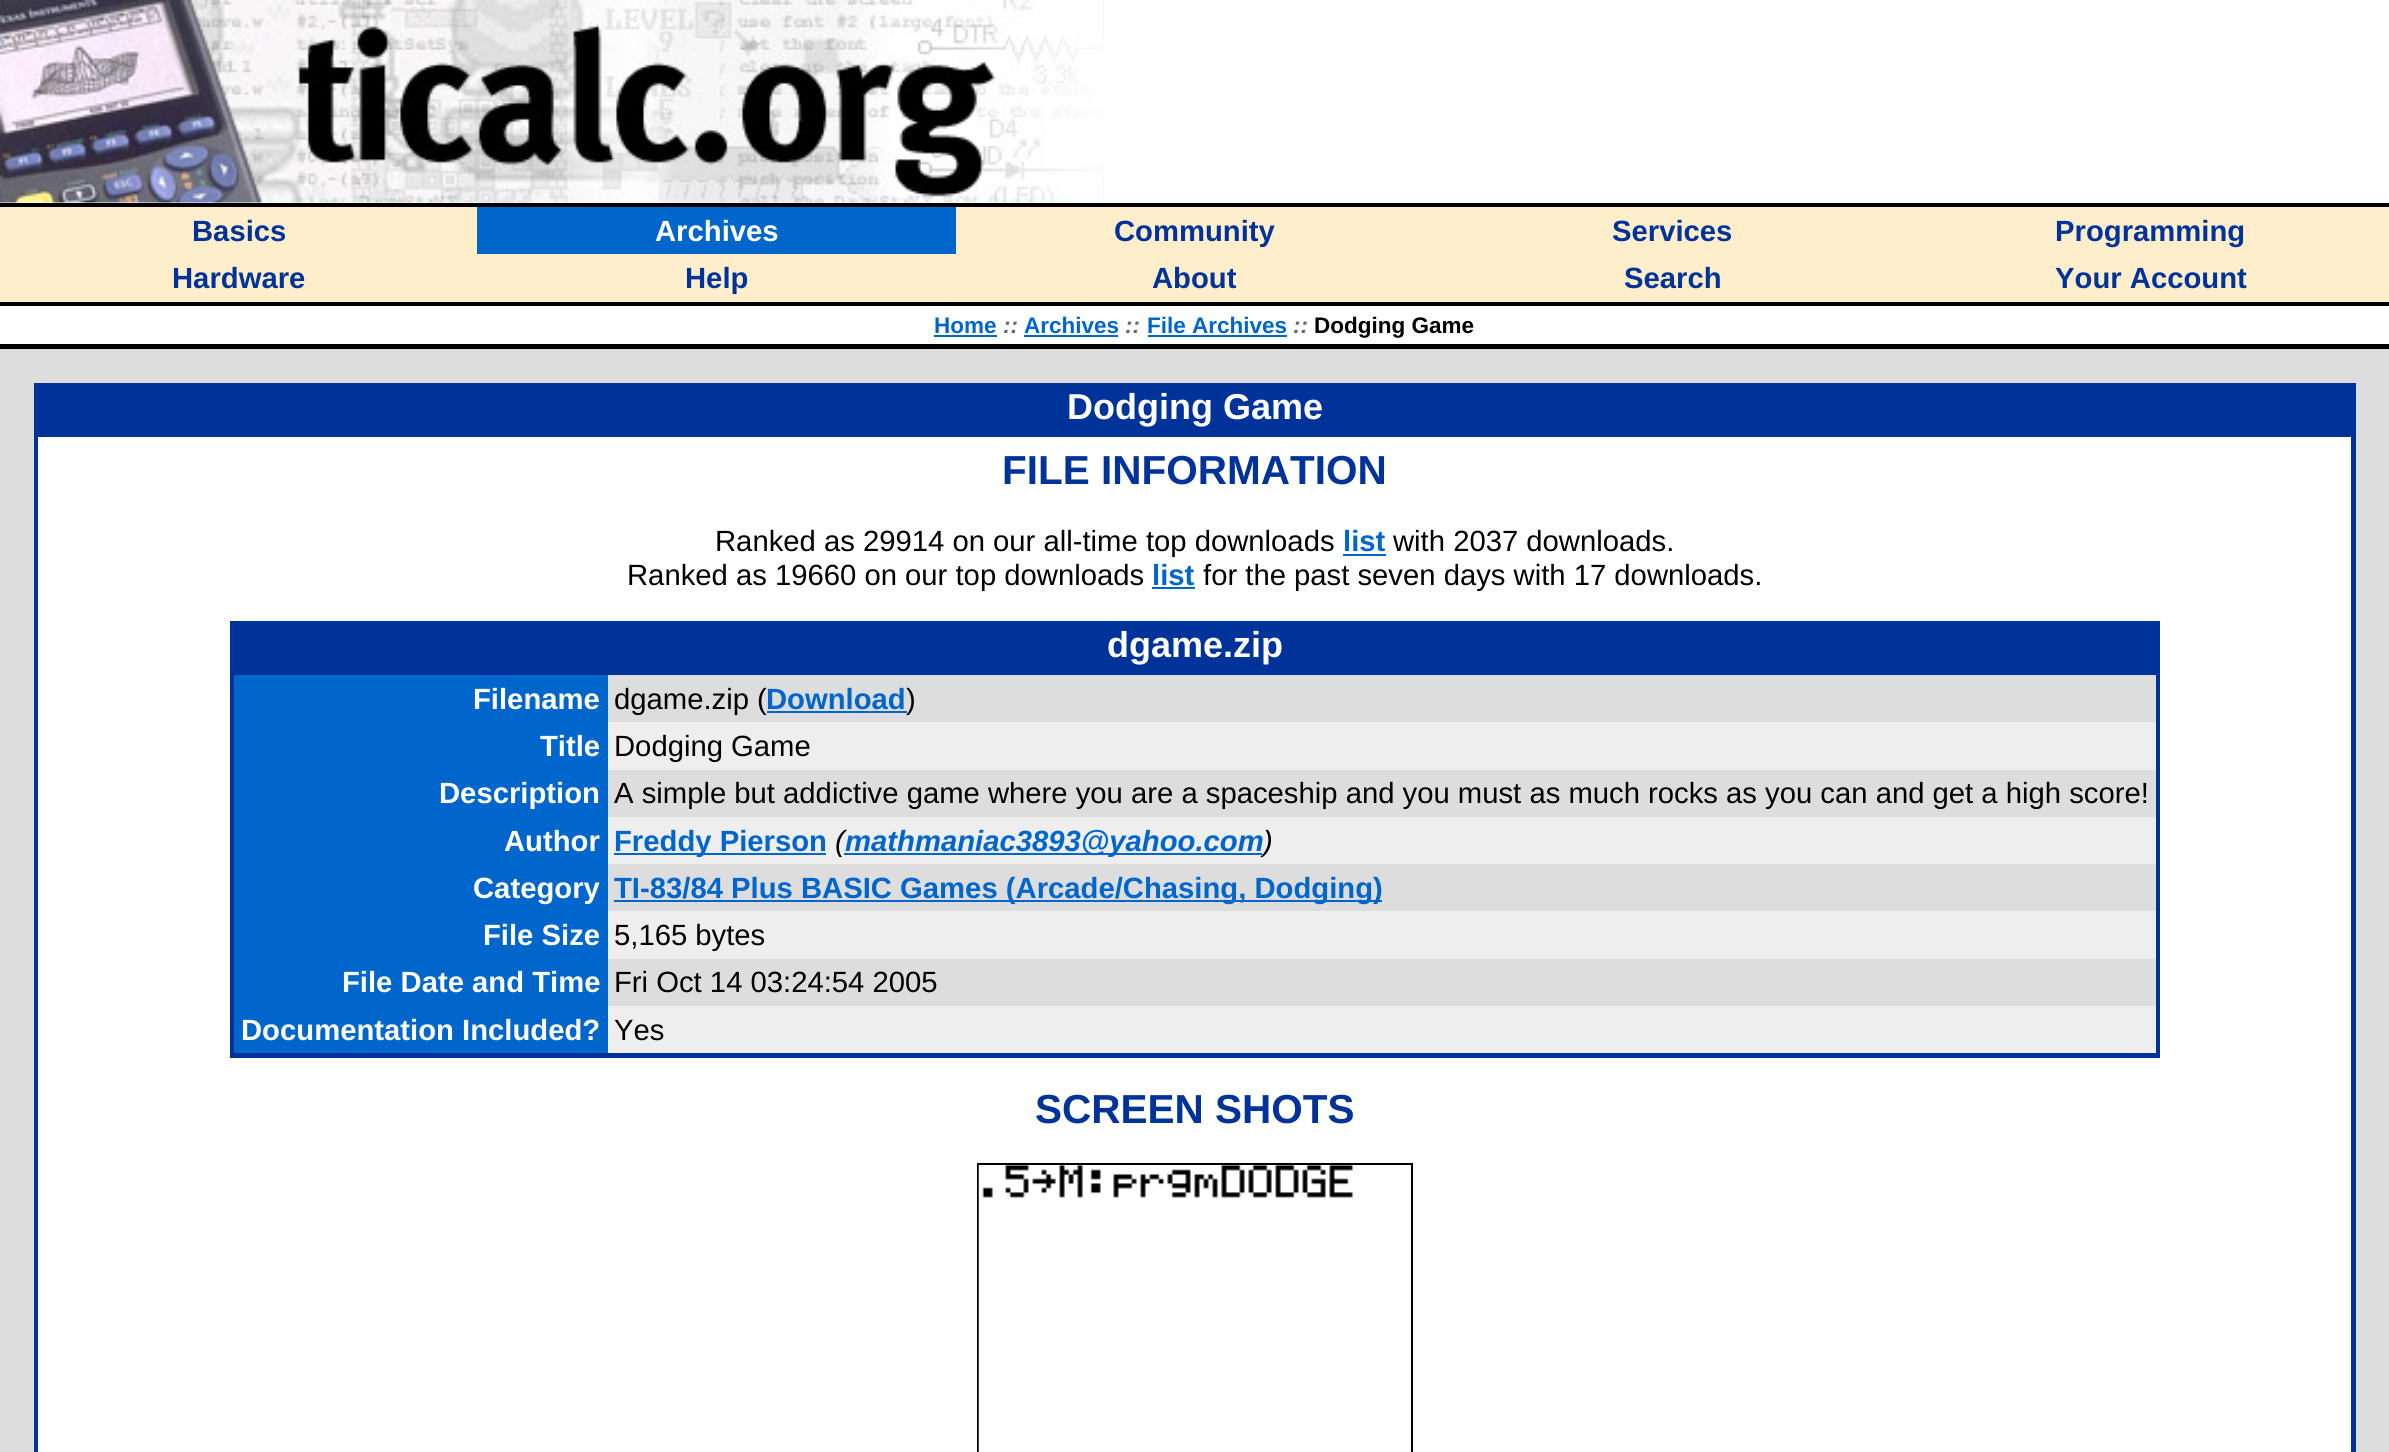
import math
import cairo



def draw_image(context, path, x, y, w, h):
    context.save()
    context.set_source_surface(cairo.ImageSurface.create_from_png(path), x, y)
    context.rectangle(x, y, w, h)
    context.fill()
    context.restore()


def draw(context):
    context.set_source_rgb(1, 1, 1)
    context.paint()
    draw_image(context, "images/1.png", 0, 0, 1105, 203)
    context.set_source_rgb(0, 0, 0)
    context.rectangle(0, 203, 2389, 4)
    context.fill()
    context.set_source_rgb(1, 238 / 255, 204 / 255)
    context.rectangle(0, 207, 2389, 95)
    context.fill()
    context.set_source_rgb(0, 102 / 255, 204 / 255)
    context.rectangle(477, 207, 479, 47)
    context.fill()
    context.set_source_rgb(0, 0, 0)
    context.rectangle(0, 302, 2389, 4)
    context.fill()
    context.set_source_rgb(0, 102 / 255, 204 / 255)
    context.rectangle(934, 335, 63, 2)
    context.fill()
    context.rectangle(1024, 335, 94, 2)
    context.fill()
    context.rectangle(1148, 335, 139, 2)
    context.fill()
    context.set_source_rgb(0, 0, 0)
    context.rectangle(0, 344, 2389, 5)
    context.fill()
    context.set_source_rgb(221 / 255, 221 / 255, 221 / 255)
    context.rectangle(0, 349, 2389, 1103)
    context.fill()
    context.set_source_rgb(0, 51 / 255, 153 / 255)
    context.rectangle(34, 383, 2322, 1069)
    context.fill()
    context.set_source_rgb(1, 1, 1)
    context.rectangle(38, 437, 2313, 1015)
    context.fill()
    context.set_source_rgb(0, 102 / 255, 204 / 255)
    context.rectangle(1343, 554, 43, 2)
    context.fill()
    context.rectangle(1152, 587, 43, 2)
    context.fill()
    context.set_source_rgb(0, 51 / 255, 153 / 255)
    context.rectangle(230, 621, 1930, 437)
    context.fill()
    context.set_source_rgb(0, 102 / 255, 204 / 255)
    context.rectangle(234, 675, 374, 378)
    context.fill()
    context.set_source_rgb(221 / 255, 221 / 255, 221 / 255)
    context.rectangle(608, 675, 1548, 47)
    context.fill()
    context.set_source_rgb(0, 102 / 255, 204 / 255)
    context.rectangle(767, 711, 140, 2)
    context.fill()
    context.set_source_rgb(238 / 255, 238 / 255, 238 / 255)
    context.rectangle(608, 722, 1548, 48)
    context.fill()
    context.set_source_rgb(221 / 255, 221 / 255, 221 / 255)
    context.rectangle(608, 770, 1548, 47)
    context.fill()
    context.set_source_rgb(238 / 255, 238 / 255, 238 / 255)
    context.rectangle(608, 817, 1548, 47)
    context.fill()
    context.set_source_rgb(0, 102 / 255, 204 / 255)
    context.rectangle(614, 853, 212, 2)
    context.fill()
    context.set_source_rgb(221 / 255, 221 / 255, 221 / 255)
    context.rectangle(608, 864, 1548, 47)
    context.fill()
    context.set_source_rgb(0, 102 / 255, 204 / 255)
    context.rectangle(614, 900, 768, 2)
    context.fill()
    context.set_source_rgb(238 / 255, 238 / 255, 238 / 255)
    context.rectangle(608, 911, 1548, 48)
    context.fill()
    context.set_source_rgb(221 / 255, 221 / 255, 221 / 255)
    context.rectangle(608, 959, 1548, 47)
    context.fill()
    context.set_source_rgb(238 / 255, 238 / 255, 238 / 255)
    context.rectangle(608, 1006, 1548, 47)
    context.fill()
    context.rectangle(978, 1164, 434, 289)
    context.set_source_rgb(0, 0, 0)
    context.stroke()
    draw_image(context, "images/2.png", 978, 1165, 375, 287)
    context.select_font_face("Liberation Sans", cairo.FontSlant.NORMAL, cairo.FontWeight.BOLD)
    context.set_font_size(29.25)
    context.set_source_rgb(0, 51 / 255, 153 / 255)
    context.move_to(192, 241)
    context.show_text("Basics")
    context.set_source_rgb(1, 1, 1)
    context.move_to(655, 241)
    context.show_text("Archives")
    context.set_source_rgb(0, 51 / 255, 153 / 255)
    context.move_to(1114, 241)
    context.show_text("Community")
    context.move_to(1612, 241)
    context.show_text("Services")
    context.move_to(2055, 241)
    context.show_text("Programming")
    context.move_to(172, 288)
    context.show_text("Hardware")
    context.move_to(685, 288)
    context.show_text("Help")
    context.move_to(1152, 288)
    context.show_text("About")
    context.move_to(1624, 288)
    context.show_text("Search")
    context.move_to(2055, 288)
    context.show_text("Your Account")
    context.set_font_size(22.5)
    context.set_source_rgb(0, 102 / 255, 204 / 255)
    context.move_to(934, 333)
    context.show_text("Home")
    context.select_font_face("Liberation Sans", cairo.FontSlant.ITALIC, cairo.FontWeight.BOLD)
    context.set_source_rgb(102 / 255, 102 / 255, 102 / 255)
    context.move_to(1003, 333)
    context.show_text("::")
    context.select_font_face("Liberation Sans", cairo.FontSlant.NORMAL, cairo.FontWeight.BOLD)
    context.set_source_rgb(0, 102 / 255, 204 / 255)
    context.move_to(1024, 333)
    context.show_text("Archives")
    context.select_font_face("Liberation Sans", cairo.FontSlant.ITALIC, cairo.FontWeight.BOLD)
    context.set_source_rgb(102 / 255, 102 / 255, 102 / 255)
    context.move_to(1125, 333)
    context.show_text("::")
    context.select_font_face("Liberation Sans", cairo.FontSlant.NORMAL, cairo.FontWeight.BOLD)
    context.set_source_rgb(0, 102 / 255, 204 / 255)
    context.move_to(1147, 333)
    context.show_text("File Archives")
    context.select_font_face("Liberation Sans", cairo.FontSlant.ITALIC, cairo.FontWeight.BOLD)
    context.set_source_rgb(102 / 255, 102 / 255, 102 / 255)
    context.move_to(1293, 333)
    context.show_text("::")
    context.select_font_face("Liberation Sans", cairo.FontSlant.NORMAL, cairo.FontWeight.BOLD)
    context.set_source_rgb(0, 0, 0)
    context.move_to(1314, 333)
    context.show_text("Dodging Game")
    context.set_font_size(36)
    context.set_source_rgb(1, 1, 1)
    context.move_to(1067, 419)
    context.show_text("Dodging Game")
    context.set_font_size(40.5)
    context.set_source_rgb(0, 51 / 255, 153 / 255)
    context.move_to(1002, 484)
    context.show_text("FILE INFORMATION")
    context.select_font_face("Liberation Sans")
    context.set_font_size(29.25)
    context.set_source_rgb(0, 0, 0)
    context.move_to(715, 551)
    context.show_text("Ranked as 29914 on our all-time top downloads")
    context.select_font_face("Liberation Sans", cairo.FontSlant.NORMAL, cairo.FontWeight.BOLD)
    context.set_source_rgb(0, 102 / 255, 204 / 255)
    context.move_to(1343, 551)
    context.show_text("list")
    context.select_font_face("Liberation Sans")
    context.set_source_rgb(0, 0, 0)
    context.move_to(1393, 551)
    context.show_text("with 2037 downloads.")
    context.move_to(627, 585)
    context.show_text("Ranked as 19660 on our top downloads")
    context.select_font_face("Liberation Sans", cairo.FontSlant.NORMAL, cairo.FontWeight.BOLD)
    context.set_source_rgb(0, 102 / 255, 204 / 255)
    context.move_to(1152, 585)
    context.show_text("list")
    context.select_font_face("Liberation Sans")
    context.set_source_rgb(0, 0, 0)
    context.move_to(1203, 585)
    context.show_text("for the past seven days with 17 downloads.")
    context.select_font_face("Liberation Sans", cairo.FontSlant.NORMAL, cairo.FontWeight.BOLD)
    context.set_font_size(36)
    context.set_source_rgb(1, 1, 1)
    context.move_to(1107, 657)
    context.show_text("dgame.zip")
    context.set_font_size(29.25)
    context.move_to(473, 709)
    context.show_text("Filename")
    context.select_font_face("Liberation Sans")
    context.set_source_rgb(0, 0, 0)
    context.move_to(614, 709)
    context.show_text("dgame.zip (")
    context.select_font_face("Liberation Sans", cairo.FontSlant.NORMAL, cairo.FontWeight.BOLD)
    context.set_source_rgb(0, 102 / 255, 204 / 255)
    context.move_to(766, 709)
    context.show_text("Download")
    context.select_font_face("Liberation Sans")
    context.set_source_rgb(0, 0, 0)
    context.move_to(906, 709)
    context.show_text(")")
    context.select_font_face("Liberation Sans", cairo.FontSlant.NORMAL, cairo.FontWeight.BOLD)
    context.set_source_rgb(1, 1, 1)
    context.move_to(540, 756)
    context.show_text("Title")
    context.select_font_face("Liberation Sans")
    context.set_source_rgb(0, 0, 0)
    context.move_to(614, 756)
    context.show_text("Dodging Game")
    context.select_font_face("Liberation Sans", cairo.FontSlant.NORMAL, cairo.FontWeight.BOLD)
    context.set_source_rgb(1, 1, 1)
    context.move_to(439, 803)
    context.show_text("Description")
    context.select_font_face("Liberation Sans")
    context.set_source_rgb(0, 0, 0)
    context.move_to(614, 803)
    context.show_text("A simple but addictive game where you are a spaceship and you must as much rocks as you can and get a high score!")
    context.select_font_face("Liberation Sans", cairo.FontSlant.NORMAL, cairo.FontWeight.BOLD)
    context.set_source_rgb(1, 1, 1)
    context.move_to(504, 851)
    context.show_text("Author")
    context.set_source_rgb(0, 102 / 255, 204 / 255)
    context.move_to(614, 851)
    context.show_text("Freddy Pierson")
    context.select_font_face("Liberation Sans", cairo.FontSlant.ITALIC)
    context.set_source_rgb(0, 0, 0)
    context.move_to(835, 851)
    context.show_text("(")
    context.set_source_rgb(0, 102 / 255, 204 / 255)
    context.rectangle(844, 853, 418, 2)
    context.fill()
    context.select_font_face("Liberation Sans", cairo.FontSlant.ITALIC, cairo.FontWeight.BOLD)
    context.move_to(845, 851)
    context.show_text("mathmaniac3893@yahoo.com")
    context.select_font_face("Liberation Sans", cairo.FontSlant.ITALIC)
    context.set_source_rgb(0, 0, 0)
    context.move_to(1263, 851)
    context.show_text(")")
    context.select_font_face("Liberation Sans", cairo.FontSlant.NORMAL, cairo.FontWeight.BOLD)
    context.set_source_rgb(1, 1, 1)
    context.move_to(473, 898)
    context.show_text("Category")
    context.set_source_rgb(0, 102 / 255, 204 / 255)
    context.move_to(614, 898)
    context.show_text("TI-83/84 Plus BASIC Games (Arcade/Chasing, Dodging)")
    context.set_source_rgb(1, 1, 1)
    context.move_to(483, 945)
    context.show_text("File Size")
    context.select_font_face("Liberation Sans")
    context.set_source_rgb(0, 0, 0)
    context.move_to(614, 945)
    context.show_text("5,165 bytes")
    context.select_font_face("Liberation Sans", cairo.FontSlant.NORMAL, cairo.FontWeight.BOLD)
    context.set_source_rgb(1, 1, 1)
    context.move_to(342, 992)
    context.show_text("File Date and Time")
    context.select_font_face("Liberation Sans")
    context.set_source_rgb(0, 0, 0)
    context.move_to(614, 992)
    context.show_text("Fri Oct 14 03:24:54 2005")
    context.select_font_face("Liberation Sans", cairo.FontSlant.NORMAL, cairo.FontWeight.BOLD)
    context.set_source_rgb(1, 1, 1)
    context.move_to(241, 1040)
    context.show_text("Documentation Included?")
    context.select_font_face("Liberation Sans")
    context.set_source_rgb(0, 0, 0)
    context.move_to(614, 1040)
    context.show_text("Yes")
    context.select_font_face("Liberation Sans", cairo.FontSlant.NORMAL, cairo.FontWeight.BOLD)
    context.set_font_size(40.5)
    context.set_source_rgb(0, 51 / 255, 153 / 255)
    context.move_to(1035, 1123)
    context.show_text("SCREEN SHOTS")


surface = cairo.ImageSurface(cairo.Format.RGB24, 2389, 1452)
context = cairo.Context(surface)
options = cairo.FontOptions()
options.set_hint_metrics(cairo.HintMetrics.OFF)
options.set_hint_style(cairo.HintStyle.NONE)
context.set_font_options(options)
context.set_miter_limit(4)
draw(context)
surface.write_to_png("out.png")
